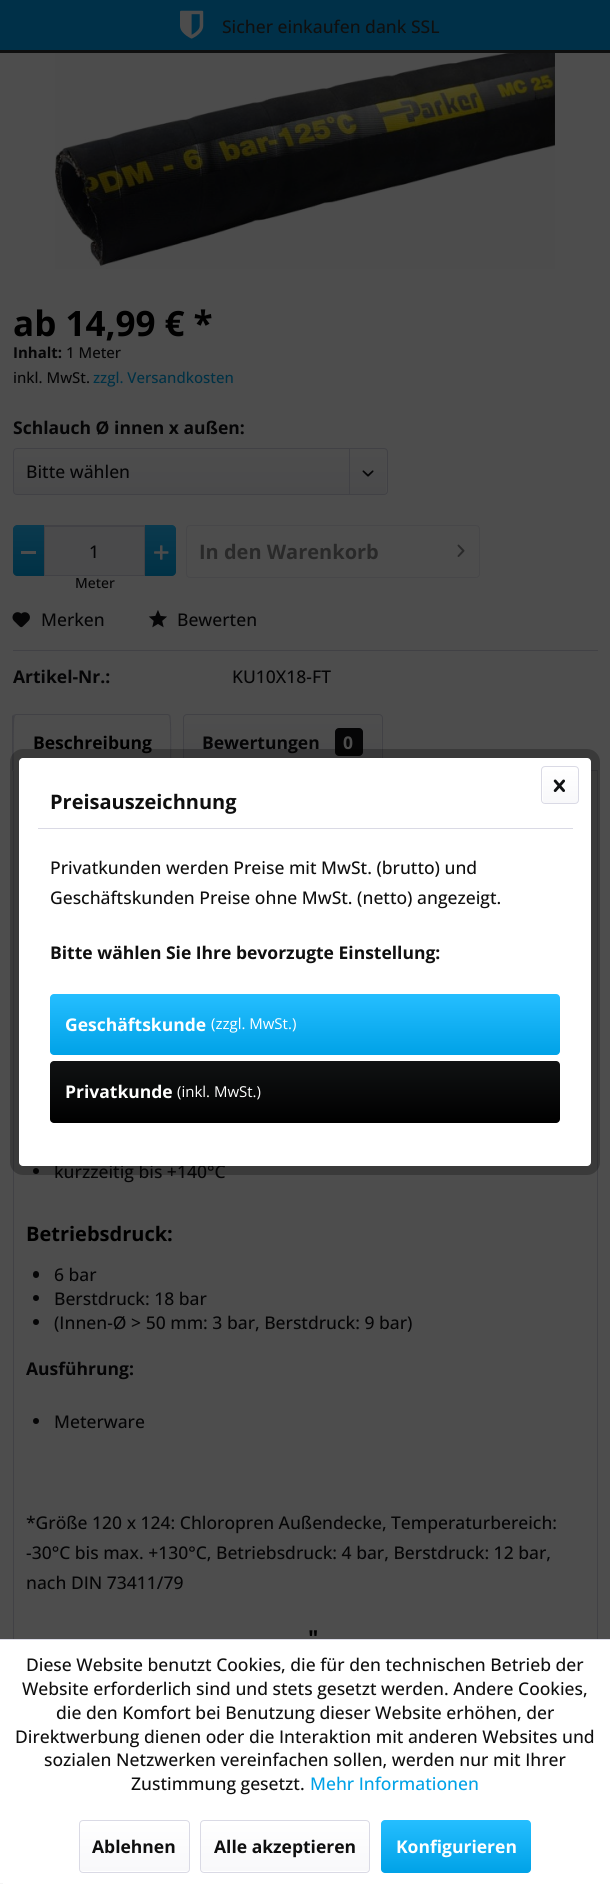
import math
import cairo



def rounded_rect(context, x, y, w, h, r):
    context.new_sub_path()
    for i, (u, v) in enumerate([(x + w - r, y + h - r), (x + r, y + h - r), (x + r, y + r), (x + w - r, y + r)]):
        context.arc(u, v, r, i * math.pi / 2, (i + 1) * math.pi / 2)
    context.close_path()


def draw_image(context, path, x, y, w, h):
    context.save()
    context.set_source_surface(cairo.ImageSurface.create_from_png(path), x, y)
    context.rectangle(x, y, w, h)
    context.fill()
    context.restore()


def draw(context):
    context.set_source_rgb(77 / 255, 77 / 255, 77 / 255)
    context.paint()
    context.set_source_rgb(0, 48 / 255, 72 / 255)
    context.rectangle(0, 0, 610, 50)
    context.fill()
    context.set_source_rgb(15 / 255, 15 / 255, 15 / 255)
    context.rectangle(0, 50, 610, 3)
    context.fill()
    draw_image(context, "images/1.png", 180, 10, 24, 29)
    draw_image(context, "images/2.png", 55, 53, 500, 216)
    gradient = cairo.LinearGradient(200, 449, 200, 494)
    gradient.add_color_stop_rgba(0, 77 / 255, 77 / 255, 77 / 255, 1)
    gradient.add_color_stop_rgba(1, 74 / 255, 74 / 255, 75 / 255, 1)
    context.set_source(gradient)
    rounded_rect(context, 14, 449, 372, 45, 2.5)
    context.fill()
    rounded_rect(context, 13.5, 448.5, 374, 46, 3.5)
    context.set_source_rgb(65 / 255, 65 / 255, 69 / 255)
    context.set_line_width(1)
    context.stroke()
    context.rectangle(349, 449, 1, 45)
    context.fill()
    draw_image(context, "images/3.png", 362, 470, 12, 7)
    gradient = cairo.LinearGradient(28, 525, 28, 576)
    gradient.add_color_stop_rgba(0, 11 / 255, 57 / 255, 77 / 255, 1)
    gradient.add_color_stop_rgba(1, 0, 49 / 255, 69 / 255, 1)
    context.set_source(gradient)
    context.new_path()
    context.move_to(17, 525)
    context.line_to(44, 525)
    context.line_to(44, 576)
    context.line_to(17, 576)
    context.curve_to(15, 576, 13, 574, 13, 572)
    context.line_to(13, 529)
    context.curve_to(13, 527, 15, 525, 17, 525)
    context.close_path()
    context.fill()
    context.set_source_rgb(77 / 255, 77 / 255, 77 / 255)
    context.rectangle(21, 551, 15, 3)
    context.fill()
    context.set_source_rgb(74 / 255, 74 / 255, 75 / 255)
    context.rectangle(45, 527, 99, 48)
    context.fill()
    context.set_source_rgb(65 / 255, 65 / 255, 69 / 255)
    context.rectangle(45, 526, 99, 1)
    context.fill()
    context.rectangle(44.5, 525.5, 100, 50)
    context.stroke()
    gradient = cairo.LinearGradient(161, 525, 161, 576)
    gradient.add_color_stop_rgba(0, 11 / 255, 57 / 255, 77 / 255, 1)
    gradient.add_color_stop_rgba(1, 0, 49 / 255, 69 / 255, 1)
    context.set_source(gradient)
    context.new_path()
    context.move_to(145, 525)
    context.line_to(172, 525)
    context.curve_to(174, 525, 176, 527, 176, 529)
    context.line_to(176, 572)
    context.curve_to(176, 574, 174, 576, 172, 576)
    context.line_to(145, 576)
    context.close_path()
    context.fill()
    draw_image(context, "images/4.png", 154, 545, 15, 15)
    rounded_rect(context, 186.5, 525.5, 293, 52, 3.5)
    context.set_source_rgb(71 / 255, 71 / 255, 73 / 255)
    context.stroke()
    draw_image(context, "images/5.png", 457, 544, 8, 13)
    context.set_source_rgb(65 / 255, 65 / 255, 69 / 255)
    context.rectangle(13, 650, 585, 1)
    context.fill()
    draw_image(context, "images/6.png", 12, 612, 18, 16)
    draw_image(context, "images/7.png", 148, 610, 19, 18)
    context.rectangle(13.5, 770.5, 584, 1028)
    context.stroke()
    context.set_source_rgb(77 / 255, 77 / 255, 77 / 255)
    context.new_path()
    context.move_to(17, 714)
    context.line_to(167, 714)
    context.curve_to(169, 714, 171, 716, 171, 718)
    context.line_to(171, 771)
    context.line_to(13, 771)
    context.line_to(13, 718)
    context.curve_to(13, 716, 15, 714, 17, 714)
    context.close_path()
    context.fill()
    context.set_source_rgb(65 / 255, 65 / 255, 69 / 255)
    context.new_path()
    context.move_to(16, 714)
    context.line_to(13, 715)
    context.line_to(15, 716)
    context.line_to(16, 715)
    context.line_to(168, 715)
    context.line_to(169, 716)
    context.line_to(170, 715)
    context.line_to(168, 714)
    context.close_path()
    context.fill()
    context.new_path()
    context.move_to(171, 771)
    context.curve_to(171, 764, 172, 717, 170, 715)
    context.line_to(169, 716)
    context.curve_to(171, 718, 170, 764, 170, 770)
    context.close_path()
    context.fill()
    context.set_source_rgb(77 / 255, 77 / 255, 77 / 255)
    context.new_path()
    context.move_to(171, 771)
    context.line_to(170, 770)
    context.line_to(14, 770)
    context.line_to(13, 771)
    context.close_path()
    context.fill()
    context.set_source_rgb(65 / 255, 65 / 255, 69 / 255)
    context.new_path()
    context.move_to(12, 716)
    context.line_to(13, 715)
    context.line_to(15, 716)
    context.curve_to(13, 718, 14, 763, 14, 770)
    context.line_to(12, 771)
    context.close_path()
    context.fill()
    gradient = cairo.LinearGradient(283, 715, 283, 770)
    gradient.add_color_stop_rgba(0, 77 / 255, 77 / 255, 77 / 255, 1)
    gradient.add_color_stop_rgba(1, 74 / 255, 74 / 255, 75 / 255, 1)
    context.set_source(gradient)
    context.new_path()
    context.move_to(186.5, 715)
    context.line_to(378.5, 715)
    context.curve_to(380, 715, 381, 716, 381, 717.5)
    context.line_to(381, 770)
    context.line_to(184, 770)
    context.line_to(184, 717.5)
    context.curve_to(184, 716, 185, 715, 186.5, 715)
    context.close_path()
    context.fill()
    context.new_path()
    context.move_to(187, 714.5)
    context.line_to(379, 714.5)
    context.curve_to(381, 714.5, 382.5, 716, 382.5, 718)
    context.line_to(382.5, 770.5)
    context.line_to(183.5, 770.5)
    context.line_to(183.5, 718)
    context.curve_to(183.5, 716, 185, 714.5, 187, 714.5)
    context.close_path()
    context.set_source_rgb(65 / 255, 65 / 255, 69 / 255)
    context.stroke()
    context.set_source_rgb(5 / 255, 5 / 255, 6 / 255)
    rounded_rect(context, 335, 728, 28, 28, 4)
    context.fill()
    context.arc(36, 1171, 3, 0, 2 * math.pi)
    context.fill()
    rounded_rect(context, 33, 1271, 6, 7, 3)
    context.fill()
    context.arc(36, 1298, 3, 0, 2 * math.pi)
    context.fill()
    context.arc(36, 1322, 3, 0, 2 * math.pi)
    context.fill()
    context.arc(36, 1421, 3, 0, 2 * math.pi)
    context.fill()
    context.set_source_rgb(1, 1, 1)
    context.rectangle(0, 1640, 610, 244)
    context.fill()
    context.set_source_rgb(218 / 255, 218 / 255, 229 / 255)
    context.rectangle(0, 1639, 610, 1)
    context.fill()
    gradient = cairo.LinearGradient(134, 1821, 134, 1871)
    gradient.add_color_stop_rgba(0, 1, 1, 1, 1)
    gradient.add_color_stop_rgba(1, 248 / 255, 248 / 255, 250 / 255, 1)
    context.set_source(gradient)
    rounded_rect(context, 80, 1821, 109, 50, 2.5)
    context.fill()
    rounded_rect(context, 79.5, 1820.5, 110, 52, 3.5)
    context.set_source_rgb(218 / 255, 218 / 255, 229 / 255)
    context.stroke()
    gradient = cairo.LinearGradient(285, 1821, 285, 1871)
    gradient.add_color_stop_rgba(0, 1, 1, 1, 1)
    gradient.add_color_stop_rgba(1, 248 / 255, 248 / 255, 250 / 255, 1)
    context.set_source(gradient)
    rounded_rect(context, 201, 1821, 168, 50, 2.5)
    context.fill()
    rounded_rect(context, 200.5, 1820.5, 169, 52, 3.5)
    context.set_source_rgb(218 / 255, 218 / 255, 229 / 255)
    context.stroke()
    gradient = cairo.LinearGradient(456, 1820, 456, 1873)
    gradient.add_color_stop_rgba(0, 37 / 255, 190 / 255, 1, 1)
    gradient.add_color_stop_rgba(1, 0, 162 / 255, 231 / 255, 1)
    context.set_source(gradient)
    rounded_rect(context, 381, 1820, 150, 53, 4)
    context.fill()
    context.set_source_rgb(245 / 255, 245 / 255, 245 / 255)
    context.rectangle(0, 1883, 3, 1)
    context.fill()
    context.select_font_face("Open Sans Medium")
    context.set_font_size(17.5)
    context.set_source_rgb(15 / 255, 15 / 255, 15 / 255)
    context.move_to(222, 33)
    context.show_text("Sicher einkaufen dank SSL")
    context.select_font_face("Open Sans", cairo.FontSlant.NORMAL, cairo.FontWeight.BOLD)
    context.set_font_size(35)
    context.set_source_rgb(0, 0, 0)
    context.move_to(13, 336)
    context.show_text("ab 14,99 € *")
    context.set_font_size(15)
    context.set_source_rgb(5 / 255, 5 / 255, 6 / 255)
    context.move_to(13, 358)
    context.show_text("Inhalt:")
    context.select_font_face("Open Sans Medium")
    context.move_to(66, 358)
    context.show_text("1 Meter")
    context.move_to(13, 383)
    context.show_text("inkl. MwSt.")
    context.set_source_rgb(0, 49 / 255, 69 / 255)
    context.move_to(93, 383)
    context.show_text("zzgl. Versandkosten")
    context.select_font_face("Open Sans", cairo.FontSlant.NORMAL, cairo.FontWeight.BOLD)
    context.set_font_size(17.5)
    context.set_source_rgb(5 / 255, 5 / 255, 6 / 255)
    context.move_to(13, 434)
    context.show_text("Schlauch Ø innen x außen:")
    context.select_font_face("Open Sans Medium")
    context.move_to(26, 478)
    context.show_text("Bitte wählen")
    context.move_to(89, 558)
    context.show_text("1")
    context.set_font_size(14)
    context.move_to(75, 588)
    context.show_text("Meter")
    context.select_font_face("Open Sans", cairo.FontSlant.NORMAL, cairo.FontWeight.BOLD)
    context.set_font_size(20)
    context.set_source_rgb(41 / 255, 41 / 255, 41 / 255)
    context.move_to(199, 559)
    context.show_text("In den Warenkorb")
    context.select_font_face("Open Sans Medium")
    context.set_font_size(17.5)
    context.set_source_rgb(5 / 255, 5 / 255, 6 / 255)
    context.move_to(41, 626)
    context.show_text("Merken")
    context.move_to(177, 626)
    context.show_text("Bewerten")
    context.select_font_face("Open Sans", cairo.FontSlant.NORMAL, cairo.FontWeight.BOLD)
    context.move_to(13, 683)
    context.show_text("Artikel-Nr.:")
    context.select_font_face("Open Sans Medium")
    context.move_to(232, 683)
    context.show_text("KU10X18-FT")
    context.select_font_face("Open Sans", cairo.FontSlant.NORMAL, cairo.FontWeight.BOLD)
    context.set_source_rgb(0, 0, 0)
    context.move_to(33, 749)
    context.show_text("Beschreibung")
    context.set_source_rgb(5 / 255, 5 / 255, 6 / 255)
    context.move_to(202, 749)
    context.show_text("Bewertungen")
    context.set_source_rgb(77 / 255, 77 / 255, 77 / 255)
    context.move_to(343, 749)
    context.show_text("0")
    context.select_font_face("Open Sans Medium")
    context.set_source_rgb(5 / 255, 5 / 255, 6 / 255)
    context.move_to(54, 1178)
    context.show_text("kurzzeitig bis +140°C")
    context.select_font_face("Open Sans", cairo.FontSlant.NORMAL, cairo.FontWeight.BOLD)
    context.set_font_size(20)
    context.set_source_rgb(0, 0, 0)
    context.move_to(26, 1241)
    context.show_text("Betriebsdruck:")
    context.select_font_face("Open Sans Medium")
    context.set_font_size(17.5)
    context.set_source_rgb(5 / 255, 5 / 255, 6 / 255)
    context.move_to(54, 1281)
    context.show_text("6 bar")
    context.move_to(54, 1305)
    context.show_text("Berstdruck: 18 bar")
    context.move_to(54, 1329)
    context.show_text("(Innen-Ø > 50 mm: 3 bar, Berstdruck: 9 bar)")
    context.select_font_face("Open Sans", cairo.FontSlant.NORMAL, cairo.FontWeight.BOLD)
    context.move_to(26, 1375)
    context.show_text("Ausführung:")
    context.select_font_face("Open Sans Medium")
    context.move_to(54, 1428)
    context.show_text("Meterware")
    context.move_to(26, 1529)
    context.show_text("*Größe 120 x 124: Chloropren Außendecke, Temperaturbereich:")
    context.move_to(26, 1559)
    context.show_text("-30°C bis max. +130°C, Betriebsdruck: 4 bar, Berstdruck: 12 bar,")
    context.move_to(26, 1589)
    context.show_text("nach DIN 73411/79")
    context.select_font_face("Open Sans", cairo.FontSlant.NORMAL, cairo.FontWeight.BOLD)
    context.set_font_size(22)
    context.set_source_rgb(0, 0, 0)
    context.move_to(308, 1646)
    context.show_text("\"")
    rounded_rect(context, 14.5, 753.5, 581, 417, 8.5)
    context.set_source_rgba(0, 0, 0, 0.25)
    context.set_line_width(9)
    context.stroke()
    context.set_source_rgb(1, 1, 1)
    rounded_rect(context, 19, 758, 572, 408, 4)
    context.fill()
    context.set_source_rgb(218 / 255, 218 / 255, 229 / 255)
    context.rectangle(38, 828, 535, 1)
    context.fill()
    context.set_font_size(20)
    context.set_source_rgb(15 / 255, 15 / 255, 15 / 255)
    context.move_to(50, 809)
    context.show_text("Preisauszeichnung")
    gradient = cairo.LinearGradient(560, 768, 560, 803)
    gradient.add_color_stop_rgba(0, 1, 1, 1, 1)
    gradient.add_color_stop_rgba(1, 248 / 255, 248 / 255, 250 / 255, 1)
    context.set_source(gradient)
    rounded_rect(context, 543, 768, 35, 35, 2.5)
    context.fill()
    rounded_rect(context, 541.5, 766.5, 37, 37, 3.5)
    context.set_source_rgb(218 / 255, 218 / 255, 229 / 255)
    context.set_line_width(1)
    context.stroke()
    draw_image(context, "images/8.png", 553, 779, 12, 13)
    context.select_font_face("Open Sans Medium")
    context.set_font_size(17.5)
    context.set_source_rgb(15 / 255, 15 / 255, 15 / 255)
    context.move_to(50, 874)
    context.show_text("Privatkunden werden Preise mit MwSt. (brutto) und")
    context.move_to(50, 904)
    context.show_text("Geschäftskunden Preise ohne MwSt. (netto) angezeigt.")
    context.select_font_face("Open Sans", cairo.FontSlant.NORMAL, cairo.FontWeight.BOLD)
    context.move_to(50, 959)
    context.show_text("Bitte wählen Sie Ihre bevorzugte Einstellung:")
    gradient = cairo.LinearGradient(305, 994, 305, 1055)
    gradient.add_color_stop_rgba(0, 37 / 255, 190 / 255, 1, 1)
    gradient.add_color_stop_rgba(1, 0, 162 / 255, 231 / 255, 1)
    context.set_source(gradient)
    rounded_rect(context, 50, 994, 510, 61, 4)
    context.fill()
    context.set_source_rgb(1, 1, 1)
    context.move_to(65, 1031)
    context.show_text("Geschäftskunde")
    context.select_font_face("Open Sans")
    context.set_font_size(15)
    context.move_to(211, 1029)
    context.show_text("(zzgl. MwSt.)")
    gradient = cairo.LinearGradient(305, 1061, 305, 1123)
    gradient.add_color_stop_rgba(0, 16 / 255, 18 / 255, 19 / 255, 1)
    gradient.add_color_stop_rgba(1, 0, 0, 0, 1)
    context.set_source(gradient)
    rounded_rect(context, 50, 1061, 510, 62, 4)
    context.fill()
    context.select_font_face("Open Sans", cairo.FontSlant.NORMAL, cairo.FontWeight.BOLD)
    context.set_font_size(17.5)
    context.set_source_rgb(1, 1, 1)
    context.move_to(65, 1098)
    context.show_text("Privatkunde")
    context.select_font_face("Open Sans")
    context.set_font_size(15)
    context.move_to(177, 1097)
    context.show_text("(inkl. MwSt.)")
    context.select_font_face("Open Sans Medium")
    context.set_font_size(17.5)
    context.set_source_rgb(15 / 255, 15 / 255, 15 / 255)
    context.move_to(26, 1671)
    context.show_text("Diese Website benutzt Cookies, die für den technischen Betrieb der")
    context.move_to(22, 1695)
    context.show_text("Website erforderlich sind und stets gesetzt werden. Andere Cookies,")
    context.move_to(56, 1719)
    context.show_text("die den Komfort bei Benutzung dieser Website erhöhen, der")
    context.move_to(15, 1743)
    context.show_text("Direktwerbung dienen oder die Interaktion mit anderen Websites und")
    context.move_to(44, 1766)
    context.show_text("sozialen Netzwerken vereinfachen sollen, werden nur mit Ihrer")
    context.move_to(131, 1790)
    context.show_text("Zustimmung gesetzt.")
    context.set_source_rgb(0, 162 / 255, 231 / 255)
    context.move_to(310, 1790)
    context.show_text("Mehr Informationen")
    context.select_font_face("Open Sans", cairo.FontSlant.NORMAL, cairo.FontWeight.BOLD)
    context.set_source_rgb(15 / 255, 15 / 255, 15 / 255)
    context.move_to(92, 1853)
    context.show_text("Ablehnen")
    context.move_to(214, 1853)
    context.show_text("Alle akzeptieren")
    context.set_source_rgb(1, 1, 1)
    context.move_to(396, 1853)
    context.show_text("Konfigurieren")


surface = cairo.ImageSurface(cairo.Format.RGB24, 610, 1884)
context = cairo.Context(surface)
options = cairo.FontOptions()
options.set_hint_metrics(cairo.HintMetrics.OFF)
options.set_hint_style(cairo.HintStyle.NONE)
context.set_font_options(options)
context.set_miter_limit(4)
draw(context)
surface.write_to_png("out.png")
